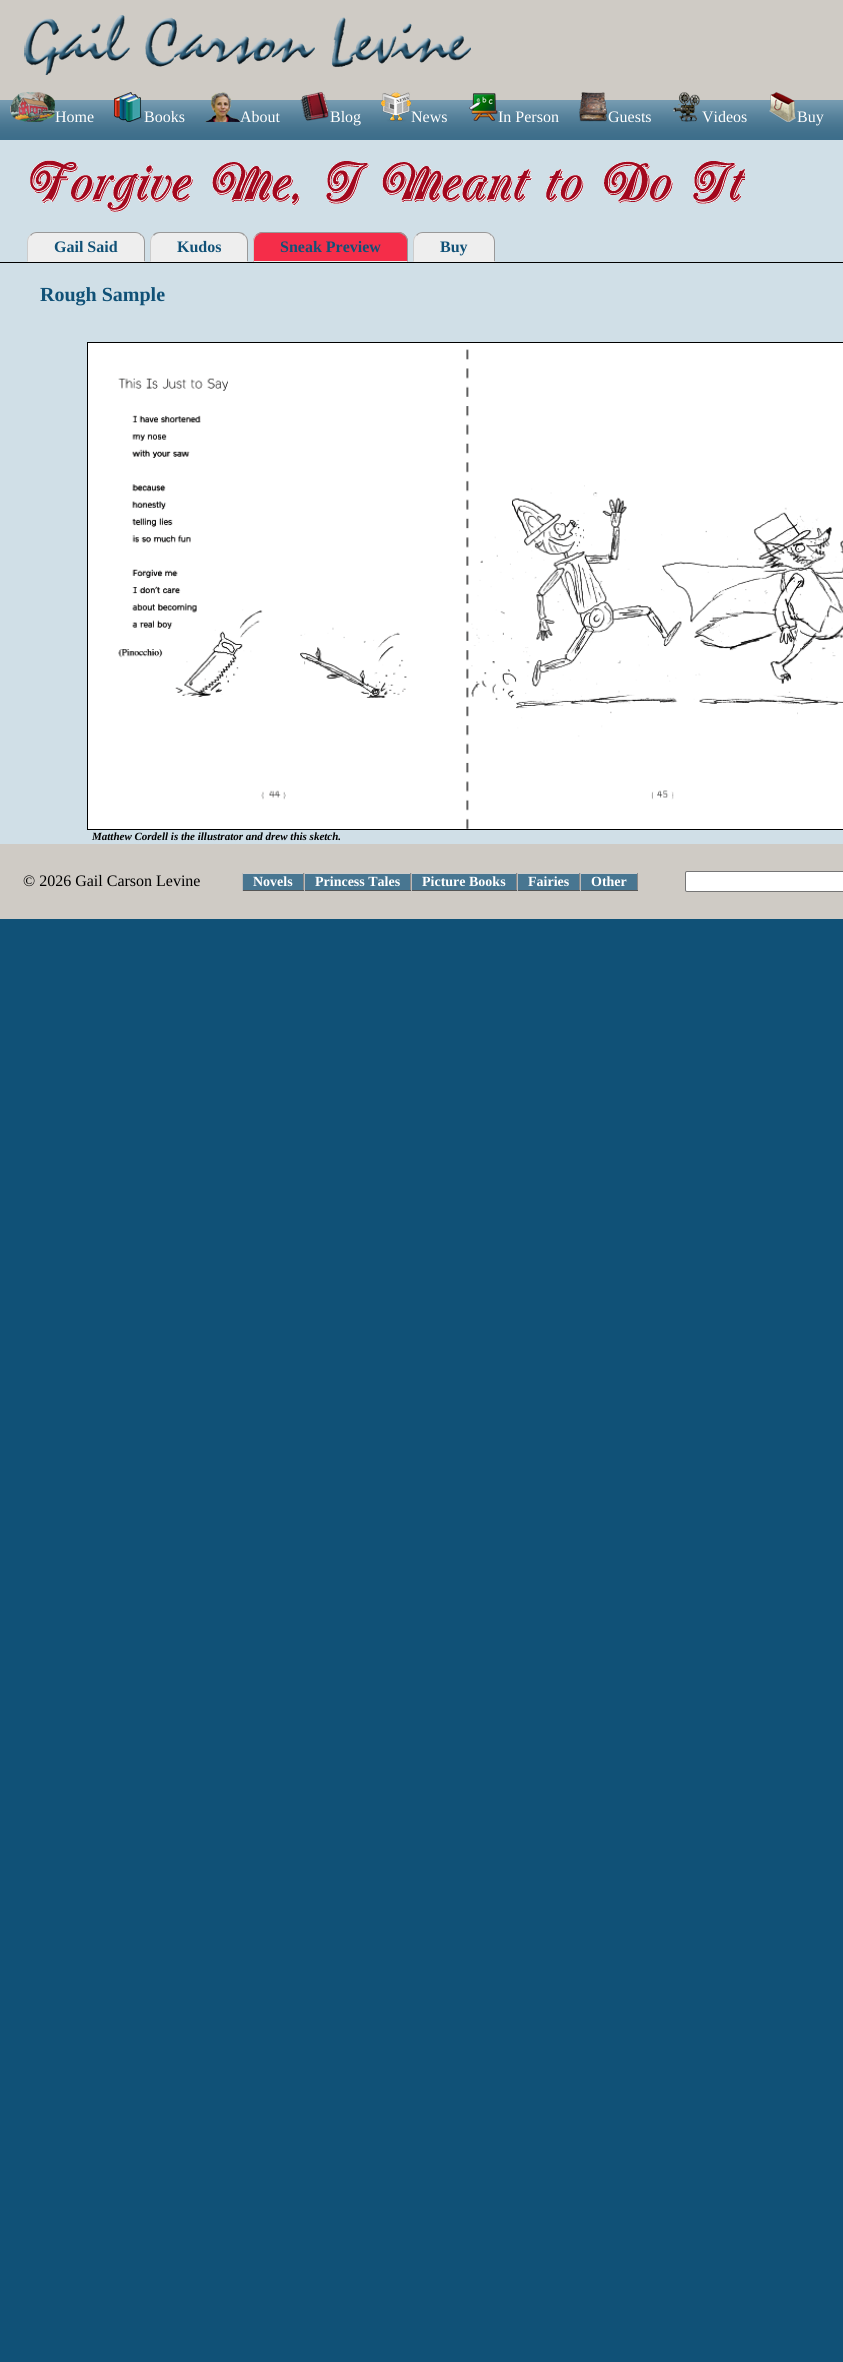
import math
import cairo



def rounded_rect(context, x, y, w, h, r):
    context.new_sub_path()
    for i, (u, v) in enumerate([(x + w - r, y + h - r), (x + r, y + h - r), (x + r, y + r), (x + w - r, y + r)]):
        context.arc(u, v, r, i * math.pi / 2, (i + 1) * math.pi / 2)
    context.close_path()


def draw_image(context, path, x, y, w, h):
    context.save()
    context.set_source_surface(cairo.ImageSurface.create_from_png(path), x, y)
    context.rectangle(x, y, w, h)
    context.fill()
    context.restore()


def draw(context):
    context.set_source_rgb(16 / 255, 81 / 255, 119 / 255)
    context.paint()
    context.set_source_rgb(208 / 255, 223 / 255, 231 / 255)
    context.rectangle(0, 140, 843, 704)
    context.fill()
    context.set_source_rgb(207 / 255, 203 / 255, 197 / 255)
    context.rectangle(0, 0, 843, 100)
    context.fill()
    draw_image(context, "images/1.png", 24, 15, 447, 60)
    draw_image(context, "images/2.png", 0, 100, 843, 40)
    draw_image(context, "images/3.png", 10, 92, 45, 30)
    draw_image(context, "images/4.png", 114, 92, 30, 30)
    draw_image(context, "images/5.png", 205, 92, 35, 30)
    draw_image(context, "images/6.png", 300, 92, 29, 29)
    draw_image(context, "images/7.png", 381, 92, 30, 30)
    draw_image(context, "images/8.png", 469, 93, 29, 28)
    draw_image(context, "images/9.png", 579, 92, 28, 30)
    draw_image(context, "images/10.png", 673, 92, 27, 30)
    draw_image(context, "images/11.png", 769, 92, 27, 30)
    draw_image(context, "images/12.png", 30, 160, 715, 52)
    context.set_source_rgb(0, 0, 0)
    context.rectangle(0, 262, 843, 1)
    context.fill()
    context.set_source_rgb(238 / 255, 238 / 255, 238 / 255)
    context.new_path()
    context.move_to(37, 232)
    context.line_to(135, 232)
    context.curve_to(140.5, 232, 145, 236.5, 145, 242)
    context.line_to(145, 262)
    context.line_to(27, 262)
    context.line_to(27, 242)
    context.curve_to(27, 236.5, 31.5, 232, 37, 232)
    context.close_path()
    context.fill()
    context.set_source_rgb(153 / 255, 153 / 255, 153 / 255)
    context.new_path()
    context.move_to(37, 232)
    context.curve_to(34, 232, 32, 233, 30, 235)
    context.line_to(31, 236)
    context.curve_to(32, 234, 34, 233, 37, 233)
    context.line_to(135, 233)
    context.curve_to(138, 233, 140, 234, 141, 236)
    context.line_to(142, 235)
    context.curve_to(140, 233, 138, 232, 135, 232)
    context.close_path()
    context.fill()
    context.new_path()
    context.move_to(145, 262)
    context.line_to(145, 242)
    context.curve_to(145, 239, 144, 236.5, 142, 235)
    context.line_to(141.5, 235.5)
    context.curve_to(143, 237, 144, 239.5, 144, 242)
    context.line_to(144, 261)
    context.close_path()
    context.fill()
    context.set_source_rgb(238 / 255, 238 / 255, 238 / 255)
    context.new_path()
    context.move_to(145, 262)
    context.line_to(144, 261)
    context.line_to(28, 261)
    context.line_to(27, 262)
    context.close_path()
    context.fill()
    context.set_source_rgb(204 / 255, 204 / 255, 204 / 255)
    context.new_path()
    context.move_to(27, 262)
    context.line_to(28, 261)
    context.line_to(28, 242)
    context.curve_to(28, 239.5, 29, 237, 30.5, 235.5)
    context.line_to(30, 235)
    context.curve_to(28, 236.5, 27, 239, 27, 242)
    context.close_path()
    context.fill()
    context.set_source_rgb(238 / 255, 238 / 255, 238 / 255)
    context.new_path()
    context.move_to(160, 232)
    context.line_to(238, 232)
    context.curve_to(243.5, 232, 248, 236.5, 248, 242)
    context.line_to(248, 262)
    context.line_to(150, 262)
    context.line_to(150, 242)
    context.curve_to(150, 236.5, 154.5, 232, 160, 232)
    context.close_path()
    context.fill()
    context.set_source_rgb(153 / 255, 153 / 255, 153 / 255)
    context.new_path()
    context.move_to(160, 232)
    context.curve_to(157, 232, 154, 233, 153, 235)
    context.line_to(154, 236)
    context.curve_to(155, 234, 158, 233, 160, 233)
    context.line_to(238, 233)
    context.curve_to(240, 233, 243, 234, 244, 236)
    context.line_to(245, 235)
    context.curve_to(244, 233, 241, 232, 238, 232)
    context.close_path()
    context.fill()
    context.new_path()
    context.move_to(248, 262)
    context.line_to(248, 242)
    context.curve_to(248, 239, 247, 236.5, 245, 235)
    context.line_to(244.5, 235.5)
    context.curve_to(246, 237, 247, 239.5, 247, 242)
    context.line_to(247, 261)
    context.close_path()
    context.fill()
    context.set_source_rgb(238 / 255, 238 / 255, 238 / 255)
    context.new_path()
    context.move_to(248, 262)
    context.line_to(247, 261)
    context.line_to(151, 261)
    context.line_to(150, 262)
    context.close_path()
    context.fill()
    context.set_source_rgb(204 / 255, 204 / 255, 204 / 255)
    context.new_path()
    context.move_to(150, 262)
    context.line_to(151, 261)
    context.line_to(151, 242)
    context.curve_to(151, 239.5, 152, 237, 153.5, 235.5)
    context.line_to(153, 235)
    context.curve_to(151, 236.5, 150, 239, 150, 242)
    context.close_path()
    context.fill()
    context.set_source_rgb(245 / 255, 45 / 255, 73 / 255)
    context.new_path()
    context.move_to(263, 232)
    context.line_to(398, 232)
    context.curve_to(403.5, 232, 408, 236.5, 408, 242)
    context.line_to(408, 262)
    context.line_to(253, 262)
    context.line_to(253, 242)
    context.curve_to(253, 236.5, 257.5, 232, 263, 232)
    context.close_path()
    context.fill()
    context.set_source_rgb(153 / 255, 153 / 255, 153 / 255)
    context.new_path()
    context.move_to(263, 232)
    context.curve_to(260, 232, 258, 233, 256, 235)
    context.line_to(257, 236)
    context.curve_to(258, 234, 260, 233, 263, 233)
    context.line_to(398, 233)
    context.curve_to(400, 233, 403, 234, 404, 236)
    context.line_to(405, 235)
    context.curve_to(404, 233, 401, 232, 398, 232)
    context.close_path()
    context.fill()
    context.new_path()
    context.move_to(408, 262)
    context.line_to(408, 242)
    context.curve_to(408, 239, 407, 236.5, 405, 235)
    context.line_to(404.5, 235.5)
    context.curve_to(406, 237, 407, 239.5, 407, 242)
    context.line_to(407, 261)
    context.close_path()
    context.fill()
    context.set_source_rgb(238 / 255, 238 / 255, 238 / 255)
    context.new_path()
    context.move_to(408, 262)
    context.line_to(407, 261)
    context.line_to(254, 261)
    context.line_to(253, 262)
    context.close_path()
    context.fill()
    context.set_source_rgb(204 / 255, 204 / 255, 204 / 255)
    context.new_path()
    context.move_to(253, 262)
    context.line_to(254, 261)
    context.line_to(254, 242)
    context.curve_to(254, 239.5, 255, 237, 256.5, 235.5)
    context.line_to(256, 235)
    context.curve_to(254, 236.5, 253, 239, 253, 242)
    context.close_path()
    context.fill()
    context.set_source_rgb(238 / 255, 238 / 255, 238 / 255)
    context.new_path()
    context.move_to(423, 232)
    context.line_to(485, 232)
    context.curve_to(490.5, 232, 495, 236.5, 495, 242)
    context.line_to(495, 262)
    context.line_to(413, 262)
    context.line_to(413, 242)
    context.curve_to(413, 236.5, 417.5, 232, 423, 232)
    context.close_path()
    context.fill()
    context.set_source_rgb(153 / 255, 153 / 255, 153 / 255)
    context.new_path()
    context.move_to(423, 232)
    context.curve_to(420, 232, 418, 233, 416, 235)
    context.line_to(417, 236)
    context.curve_to(418, 234, 420, 233, 423, 233)
    context.line_to(485, 233)
    context.curve_to(488, 233, 490, 234, 491, 236)
    context.line_to(492, 235)
    context.curve_to(490, 233, 488, 232, 485, 232)
    context.close_path()
    context.fill()
    context.new_path()
    context.move_to(495, 262)
    context.line_to(495, 242)
    context.curve_to(495, 239, 494, 236.5, 492, 235)
    context.line_to(491.5, 235.5)
    context.curve_to(493, 237, 494, 239.5, 494, 242)
    context.line_to(494, 261)
    context.close_path()
    context.fill()
    context.set_source_rgb(238 / 255, 238 / 255, 238 / 255)
    context.new_path()
    context.move_to(495, 262)
    context.line_to(494, 261)
    context.line_to(414, 261)
    context.line_to(413, 262)
    context.close_path()
    context.fill()
    context.set_source_rgb(204 / 255, 204 / 255, 204 / 255)
    context.new_path()
    context.move_to(413, 262)
    context.line_to(414, 261)
    context.line_to(414, 242)
    context.curve_to(414, 239.5, 415, 237, 416.5, 235.5)
    context.line_to(416, 235)
    context.curve_to(414, 236.5, 413, 239, 413, 242)
    context.close_path()
    context.fill()
    context.rectangle(87.5, 342.5, 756, 487)
    context.set_source_rgb(0, 0, 0)
    context.set_line_width(1)
    context.stroke()
    draw_image(context, "images/13.png", 88, 343, 755, 486)
    context.set_source_rgb(207 / 255, 203 / 255, 197 / 255)
    context.rectangle(0, 844, 843, 75)
    context.fill()
    context.set_source_rgb(72 / 255, 118 / 255, 145 / 255)
    context.rectangle(243, 874, 60, 16)
    context.fill()
    context.set_source_rgb(204 / 255, 204 / 255, 204 / 255)
    context.rectangle(242, 873, 396, 1)
    context.fill()
    context.set_source_rgb(136 / 255, 136 / 255, 136 / 255)
    context.rectangle(303, 873, 1, 18)
    context.fill()
    context.set_source_rgb(85 / 255, 85 / 255, 85 / 255)
    context.rectangle(242, 890, 62, 1)
    context.fill()
    context.set_source_rgb(187 / 255, 187 / 255, 187 / 255)
    context.rectangle(242, 873, 1, 18)
    context.fill()
    context.set_source_rgb(72 / 255, 118 / 255, 145 / 255)
    context.rectangle(305, 874, 105, 16)
    context.fill()
    context.set_source_rgb(136 / 255, 136 / 255, 136 / 255)
    context.rectangle(410, 873, 1, 18)
    context.fill()
    context.set_source_rgb(85 / 255, 85 / 255, 85 / 255)
    context.rectangle(304, 890, 107, 1)
    context.fill()
    context.set_source_rgb(187 / 255, 187 / 255, 187 / 255)
    context.rectangle(304, 873, 1, 18)
    context.fill()
    context.set_source_rgb(72 / 255, 118 / 255, 145 / 255)
    context.rectangle(412, 874, 104, 16)
    context.fill()
    context.set_source_rgb(136 / 255, 136 / 255, 136 / 255)
    context.rectangle(516, 873, 1, 18)
    context.fill()
    context.set_source_rgb(85 / 255, 85 / 255, 85 / 255)
    context.rectangle(411, 890, 106, 1)
    context.fill()
    context.set_source_rgb(187 / 255, 187 / 255, 187 / 255)
    context.rectangle(411, 873, 1, 18)
    context.fill()
    context.set_source_rgb(72 / 255, 118 / 255, 145 / 255)
    context.rectangle(518, 874, 61, 16)
    context.fill()
    context.set_source_rgb(136 / 255, 136 / 255, 136 / 255)
    context.rectangle(579, 873, 1, 18)
    context.fill()
    context.set_source_rgb(85 / 255, 85 / 255, 85 / 255)
    context.rectangle(517, 890, 63, 1)
    context.fill()
    context.set_source_rgb(187 / 255, 187 / 255, 187 / 255)
    context.rectangle(517, 873, 1, 18)
    context.fill()
    context.set_source_rgb(72 / 255, 118 / 255, 145 / 255)
    context.rectangle(581, 874, 56, 16)
    context.fill()
    context.set_source_rgb(136 / 255, 136 / 255, 136 / 255)
    context.rectangle(637, 873, 1, 18)
    context.fill()
    context.set_source_rgb(85 / 255, 85 / 255, 85 / 255)
    context.rectangle(580, 890, 58, 1)
    context.fill()
    context.set_source_rgb(187 / 255, 187 / 255, 187 / 255)
    context.rectangle(580, 873, 1, 18)
    context.fill()
    context.set_source_rgb(1, 1, 1)
    rounded_rect(context, 685.5, 871.5, 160, 20, 1.5)
    context.fill_preserve()
    context.set_source_rgb(118 / 255, 118 / 255, 118 / 255)
    context.stroke()
    context.select_font_face("Liberation Serif")
    context.set_font_size(16)
    context.set_source_rgb(1, 1, 1)
    context.move_to(55, 122)
    context.show_text("Home")
    context.move_to(144, 122)
    context.show_text("Books")
    context.move_to(240, 122)
    context.show_text("About")
    context.move_to(330, 122)
    context.show_text("Blog")
    context.move_to(411, 122)
    context.show_text("News")
    context.move_to(498, 122)
    context.show_text("In Person")
    context.move_to(608, 122)
    context.show_text("Guests")
    context.move_to(702, 122)
    context.show_text("Videos")
    context.move_to(797, 122)
    context.show_text("Buy")
    context.select_font_face("Liberation Serif", cairo.FontSlant.NORMAL, cairo.FontWeight.BOLD)
    context.set_source_rgb(16 / 255, 81 / 255, 119 / 255)
    context.move_to(54, 252)
    context.show_text("Gail Said")
    context.move_to(177, 252)
    context.show_text("Kudos")
    context.move_to(280, 252)
    context.show_text("Sneak Preview")
    context.move_to(440, 252)
    context.show_text("Buy")
    context.set_font_size(20)
    context.move_to(40, 301)
    context.show_text("Rough Sample")
    context.select_font_face("Liberation Serif", cairo.FontSlant.ITALIC, cairo.FontWeight.BOLD)
    context.set_font_size(11)
    context.set_source_rgb(0, 0, 0)
    context.move_to(92, 840)
    context.show_text("Matthew Cordell is the illustrator and drew this sketch.")
    context.select_font_face("Liberation Serif")
    context.set_font_size(16)
    context.move_to(23, 886)
    context.show_text("© 2026 Gail Carson Levine")
    context.select_font_face("Liberation Serif", cairo.FontSlant.NORMAL, cairo.FontWeight.BOLD)
    context.set_font_size(14)
    context.set_source_rgb(1, 1, 1)
    context.move_to(253, 886)
    context.show_text("Novels")
    context.move_to(315, 886)
    context.show_text("Princess Tales")
    context.move_to(422, 886)
    context.show_text("Picture Books")
    context.move_to(528, 886)
    context.show_text("Fairies")
    context.move_to(591, 886)
    context.show_text("Other")


surface = cairo.ImageSurface(cairo.Format.RGB24, 843, 2362)
context = cairo.Context(surface)
options = cairo.FontOptions()
options.set_hint_metrics(cairo.HintMetrics.OFF)
options.set_hint_style(cairo.HintStyle.NONE)
context.set_font_options(options)
context.set_miter_limit(4)
draw(context)
surface.write_to_png("out.png")
